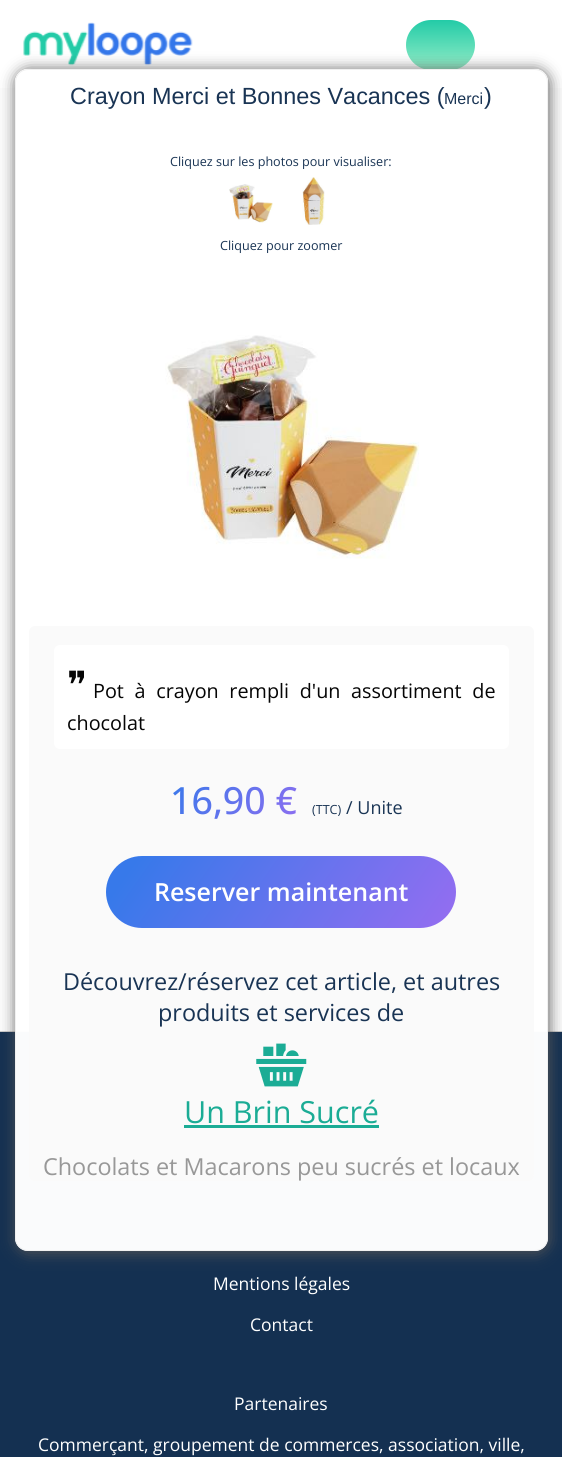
import math
import cairo



def draw_spaced(context, x, y, s, letter, word):
    context.move_to(x, y)
    for ch in s:
        context.show_text(ch)
        context.rel_move_to(letter + word * (ch == ' '), 0)


def rounded_rect(context, x, y, w, h, r):
    context.new_sub_path()
    for i, (u, v) in enumerate([(x + w - r, y + h - r), (x + r, y + h - r), (x + r, y + r), (x + w - r, y + r)]):
        context.arc(u, v, r, i * math.pi / 2, (i + 1) * math.pi / 2)
    context.close_path()


def draw_shadow(context, x, y, w, h, r, blur, alpha):
    context.push_group_with_content(cairo.Content.ALPHA)
    context.set_operator(cairo.Operator.SOURCE)
    for i in range(15, -16, -2):
        e = blur * i / 6
        if min(w, h) + 2 * e > 0:
            context.set_source_rgba(0, 0, 0, alpha * math.erfc((i - 1) / 8.5) / 2)
            rounded_rect(context, x - e, y - e, w + 2 * e, h + 2 * e, max(0, min(r + e + blur * .6, min(w, h) / 2 + e)))
            context.fill()
    context.mask(context.pop_group())


def draw_image(context, path, x, y, w, h):
    context.save()
    context.set_source_surface(cairo.ImageSurface.create_from_png(path), x, y)
    context.rectangle(x, y, w, h)
    context.fill()
    context.restore()


def draw(context):
    context.set_source_rgb(252 / 255, 252 / 255, 252 / 255)
    context.paint()
    context.set_source_rgb(1, 1, 1)
    context.rectangle(0, 0, 562, 88)
    context.fill()
    draw_image(context, "images/1.png", 23, 22, 170, 44)
    gradient = cairo.LinearGradient(441, 20, 441, 70)
    gradient.add_color_stop_rgba(0, 35 / 255, 203 / 255, 167 / 255, 1)
    gradient.add_color_stop_rgba(1, 147 / 255, 237 / 255, 199 / 255, 1)
    context.set_source(gradient)
    rounded_rect(context, 406, 20, 69, 50, 25)
    context.fill()
    context.set_source_rgb(20 / 255, 48 / 255, 81 / 255)
    context.rectangle(0, 1032, 562, 425)
    context.fill()
    context.set_source_rgb(204 / 255, 204 / 255, 204 / 255)
    context.rectangle(0, 1031, 562, 1)
    context.fill()
    draw_image(context, "images/6.png", 206, 1107, 151, 37)
    context.save()
    context.set_fill_rule(cairo.FillRule.EVEN_ODD)
    context.new_path()
    context.move_to(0, 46)
    context.line_to(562, 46)
    context.line_to(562, 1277)
    context.line_to(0, 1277)
    context.close_path()
    context.move_to(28, 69)
    context.line_to(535, 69)
    context.curve_to(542, 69, 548, 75, 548, 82)
    context.line_to(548, 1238)
    context.curve_to(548, 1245, 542, 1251, 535, 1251)
    context.line_to(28, 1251)
    context.curve_to(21, 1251, 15, 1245, 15, 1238)
    context.line_to(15, 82)
    context.curve_to(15, 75, 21, 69, 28, 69)
    context.close_path()
    context.clip()
    context.set_source_rgb(85 / 255, 85 / 255, 85 / 255)
    draw_shadow(context, 16, 70, 533, 1183, 13, 7.5, 0.98)
    context.restore()
    context.set_source_rgba(1, 1, 1, 0.98)
    rounded_rect(context, 15, 69, 533, 1182, 13)
    context.fill()
    rounded_rect(context, 15.5, 69.5, 532, 1181, 12.5)
    context.set_source_rgba(239 / 255, 239 / 255, 239 / 255, 0.98)
    context.set_line_width(1)
    context.stroke()
    draw_image(context, "images/2.png", 229, 184, 44, 39)
    draw_image(context, "images/3.png", 302, 177, 23, 48)
    draw_image(context, "images/4.png", 165, 335, 255, 224)
    context.set_source_rgba(250 / 255, 250 / 255, 250 / 255, 0.98)
    rounded_rect(context, 29, 626, 505, 555, 6)
    context.fill()
    context.set_source_rgb(1, 1, 1)
    rounded_rect(context, 54, 645, 455, 104, 6)
    context.fill()
    gradient = cairo.LinearGradient(147, 798, 461, 1018)
    gradient.add_color_stop_rgba(0.07, 55 / 255, 121 / 255, 234 / 255, 1)
    gradient.add_color_stop_rgba(1, 167 / 255, 107 / 255, 242 / 255, 1)
    context.set_source(gradient)
    rounded_rect(context, 106, 856, 350, 72, 36)
    context.fill()
    draw_image(context, "images/5.png", 256, 1043, 51, 44)
    context.set_source_rgb(27 / 255, 172 / 255, 149 / 255)
    context.rectangle(184, 1125, 195, 3)
    context.fill()
    context.select_font_face("Liberation Sans")
    context.set_font_size(23.4)
    context.set_source_rgb(25 / 255, 52 / 255, 84 / 255)
    context.move_to(70, 104)
    context.show_text("Crayon Merci et Bonnes Vacances (")
    context.set_font_size(16)
    context.move_to(444, 104)
    context.show_text("Merci")
    context.set_font_size(23.4)
    context.move_to(484, 104)
    context.show_text(")")
    context.select_font_face("Open Sans")
    context.set_font_size(12.6)
    context.move_to(170, 166)
    context.show_text("Cliquez sur les photos pour visualiser:")
    context.move_to(220, 250)
    context.show_text("Cliquez pour zoomer")
    context.select_font_face("DejaVu Sans")
    context.set_font_size(37.5)
    context.set_source_rgb(5 / 255, 5 / 255, 5 / 255)
    context.move_to(67, 698)
    context.show_text("❞")
    context.select_font_face("Open Sans")
    context.set_font_size(19.8)
    draw_spaced(context, 93, 698, "Pot à crayon rempli d'un assortiment de", 0, 5.5)
    context.move_to(67, 730)
    context.show_text("chocolat")
    context.select_font_face("Open Sans Medium")
    context.set_font_size(37.5)
    gradient = cairo.LinearGradient(170, 754, 320, 860)
    gradient.add_color_stop_rgba(0.07, 55 / 255, 121 / 255, 234 / 255, 1)
    gradient.add_color_stop_rgba(1, 167 / 255, 107 / 255, 242 / 255, 1)
    context.set_source(gradient)
    context.move_to(170, 814)
    context.show_text("16,90 €")
    context.select_font_face("Open Sans")
    context.set_font_size(12.6)
    context.set_source_rgb(25 / 255, 52 / 255, 84 / 255)
    context.move_to(312, 814)
    context.show_text("(TTC)")
    context.set_font_size(18)
    context.move_to(346, 814)
    context.show_text("/ Unite")
    context.select_font_face("Open Sans SemiBold")
    context.set_font_size(25)
    context.set_source_rgb(1, 1, 1)
    context.move_to(154, 901)
    context.show_text("Reserver maintenant")
    context.select_font_face("Open Sans")
    context.set_font_size(23.4)
    context.set_source_rgb(25 / 255, 52 / 255, 84 / 255)
    context.move_to(63, 990)
    context.show_text("Découvrez/réservez cet article, et autres")
    context.move_to(158, 1021)
    context.show_text("produits et services de")
    context.set_font_size(30.5)
    context.set_source_rgb(27 / 255, 172 / 255, 149 / 255)
    context.move_to(184, 1123)
    context.show_text("Un Brin Sucré")
    context.set_font_size(23.4)
    context.set_source_rgb(152 / 255, 152 / 255, 152 / 255)
    context.move_to(43, 1175)
    context.show_text("Chocolats et Macarons peu sucrés et locaux")
    context.set_font_size(17.5)
    context.set_source_rgb(1, 1, 1)
    context.move_to(213, 1290)
    context.show_text("Mentions légales")
    context.move_to(250, 1331)
    context.show_text("Contact")
    context.move_to(234, 1410)
    context.show_text("Partenaires")
    context.move_to(38, 1451)
    context.show_text("Commerçant, groupement de commerces, association, ville,")


surface = cairo.ImageSurface(cairo.Format.RGB24, 562, 1457)
context = cairo.Context(surface)
options = cairo.FontOptions()
options.set_hint_metrics(cairo.HintMetrics.OFF)
options.set_hint_style(cairo.HintStyle.NONE)
context.set_font_options(options)
context.set_miter_limit(4)
draw(context)
surface.write_to_png("out.png")
